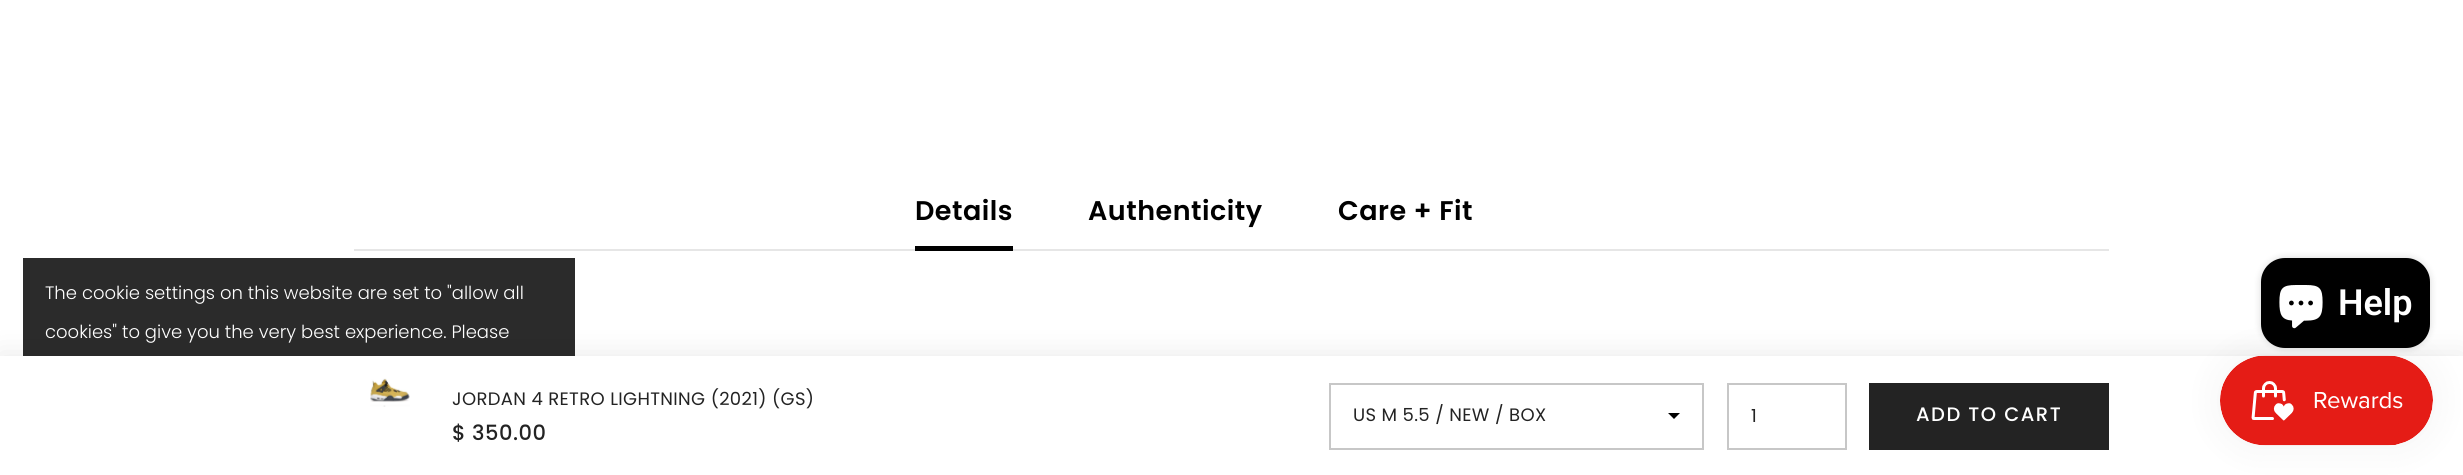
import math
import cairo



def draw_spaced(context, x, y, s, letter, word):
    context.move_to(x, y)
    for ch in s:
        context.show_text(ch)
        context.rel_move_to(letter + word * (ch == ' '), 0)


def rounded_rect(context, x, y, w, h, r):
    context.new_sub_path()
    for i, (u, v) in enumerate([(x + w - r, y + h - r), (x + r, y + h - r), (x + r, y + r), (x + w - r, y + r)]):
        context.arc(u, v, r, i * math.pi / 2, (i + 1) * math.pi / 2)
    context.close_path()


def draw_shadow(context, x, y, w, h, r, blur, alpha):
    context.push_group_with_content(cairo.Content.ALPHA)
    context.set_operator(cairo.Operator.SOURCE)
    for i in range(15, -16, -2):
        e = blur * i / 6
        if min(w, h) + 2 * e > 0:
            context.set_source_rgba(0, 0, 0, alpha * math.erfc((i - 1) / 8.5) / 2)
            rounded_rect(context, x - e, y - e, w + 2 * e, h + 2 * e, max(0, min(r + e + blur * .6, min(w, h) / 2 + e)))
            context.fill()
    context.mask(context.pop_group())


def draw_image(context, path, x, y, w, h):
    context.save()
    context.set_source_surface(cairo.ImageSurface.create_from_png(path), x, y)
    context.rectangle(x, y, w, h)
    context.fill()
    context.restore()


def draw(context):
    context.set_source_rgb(1, 1, 1)
    context.paint()
    context.set_source_rgb(43 / 255, 43 / 255, 43 / 255)
    context.rectangle(23, 258, 552, 98)
    context.fill()
    context.set_source_rgb(230 / 255, 230 / 255, 230 / 255)
    context.rectangle(354, 249, 1755, 2)
    context.fill()
    context.set_source_rgb(0, 0, 0)
    context.rectangle(915, 246, 98, 5)
    context.fill()
    context.set_source_rgb(0, 0, 0)
    draw_shadow(context, 0, 357, 2463, 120, 0, 15, 0.1)
    context.set_source_rgb(1, 1, 1)
    context.rectangle(0, 356, 2463, 119)
    context.fill()
    draw_image(context, "images/1.png", 370, 378, 40, 29)
    context.set_source_rgb(0, 0, 0)
    context.new_path()
    context.move_to(1668, 413)
    context.line_to(1674, 419)
    context.line_to(1680, 413)
    context.close_path()
    context.fill()
    context.rectangle(1330, 384, 373, 65)
    context.set_source_rgb(199 / 255, 199 / 255, 199 / 255)
    context.stroke()
    context.rectangle(1728, 384, 118, 65)
    context.stroke()
    context.set_source_rgb(35 / 255, 35 / 255, 35 / 255)
    context.rectangle(1869, 383, 240, 67)
    context.fill()
    context.set_source_rgb(0, 0, 0)
    draw_shadow(context, 2261, 258, 169, 90, 24, 4, 0.15)
    context.set_source_rgb(0, 0, 0)
    rounded_rect(context, 2261, 258, 169, 90, 24)
    context.fill()
    draw_image(context, "images/2.png", 2279, 285, 44, 44)
    context.set_source_rgb(0, 0, 0)
    draw_shadow(context, 2220, 356, 213, 90, 45, 19, 0.05)
    draw_image(context, "images/3.png", 2220, 355, 213, 91)
    context.select_font_face("Poppins Light")
    context.set_font_size(18)
    context.set_source_rgb(1, 1, 1)
    context.move_to(45, 299)
    context.show_text("The cookie settings on this website are set to \"allow all")
    context.move_to(45, 338)
    context.show_text("cookies\" to give you the very best experience. Please")
    context.select_font_face("Poppins SemiBold")
    context.set_font_size(27)
    context.set_source_rgb(0, 0, 0)
    draw_spaced(context, 915, 220, "Details", 0.5, 0)
    draw_spaced(context, 1088, 220, "Authenticity", 0.5, 0)
    draw_spaced(context, 1338, 220, "Care + Fit", 0.5, 0)
    context.select_font_face("Poppins")
    context.set_font_size(18)
    context.set_source_rgb(35 / 255, 35 / 255, 35 / 255)
    draw_spaced(context, 452, 405, "JORDAN 4 RETRO LIGHTNING (2021) (GS)", 0.35, 0)
    context.select_font_face("Poppins Medium")
    context.set_font_size(21)
    draw_spaced(context, 452, 440, "$ 350.00", 0.5, 0)
    context.select_font_face("Poppins")
    context.set_font_size(18)
    draw_spaced(context, 1353, 421, "US M 5.5 / NEW / BOX", 0.35, 0)
    draw_spaced(context, 1751, 422, "1", 0.35, 0)
    context.select_font_face("Poppins Medium")
    context.set_font_size(19.5)
    context.set_source_rgb(1, 1, 1)
    draw_spaced(context, 1916, 421, "ADD TO CART", 1.5, 0)
    context.select_font_face("Roboto SemiBold")
    context.set_font_size(36)
    context.move_to(2338, 315)
    context.show_text("Help")


surface = cairo.ImageSurface(cairo.Format.RGB24, 2463, 475)
context = cairo.Context(surface)
options = cairo.FontOptions()
options.set_hint_metrics(cairo.HintMetrics.OFF)
options.set_hint_style(cairo.HintStyle.NONE)
context.set_font_options(options)
context.set_miter_limit(4)
draw(context)
surface.write_to_png("out.png")
